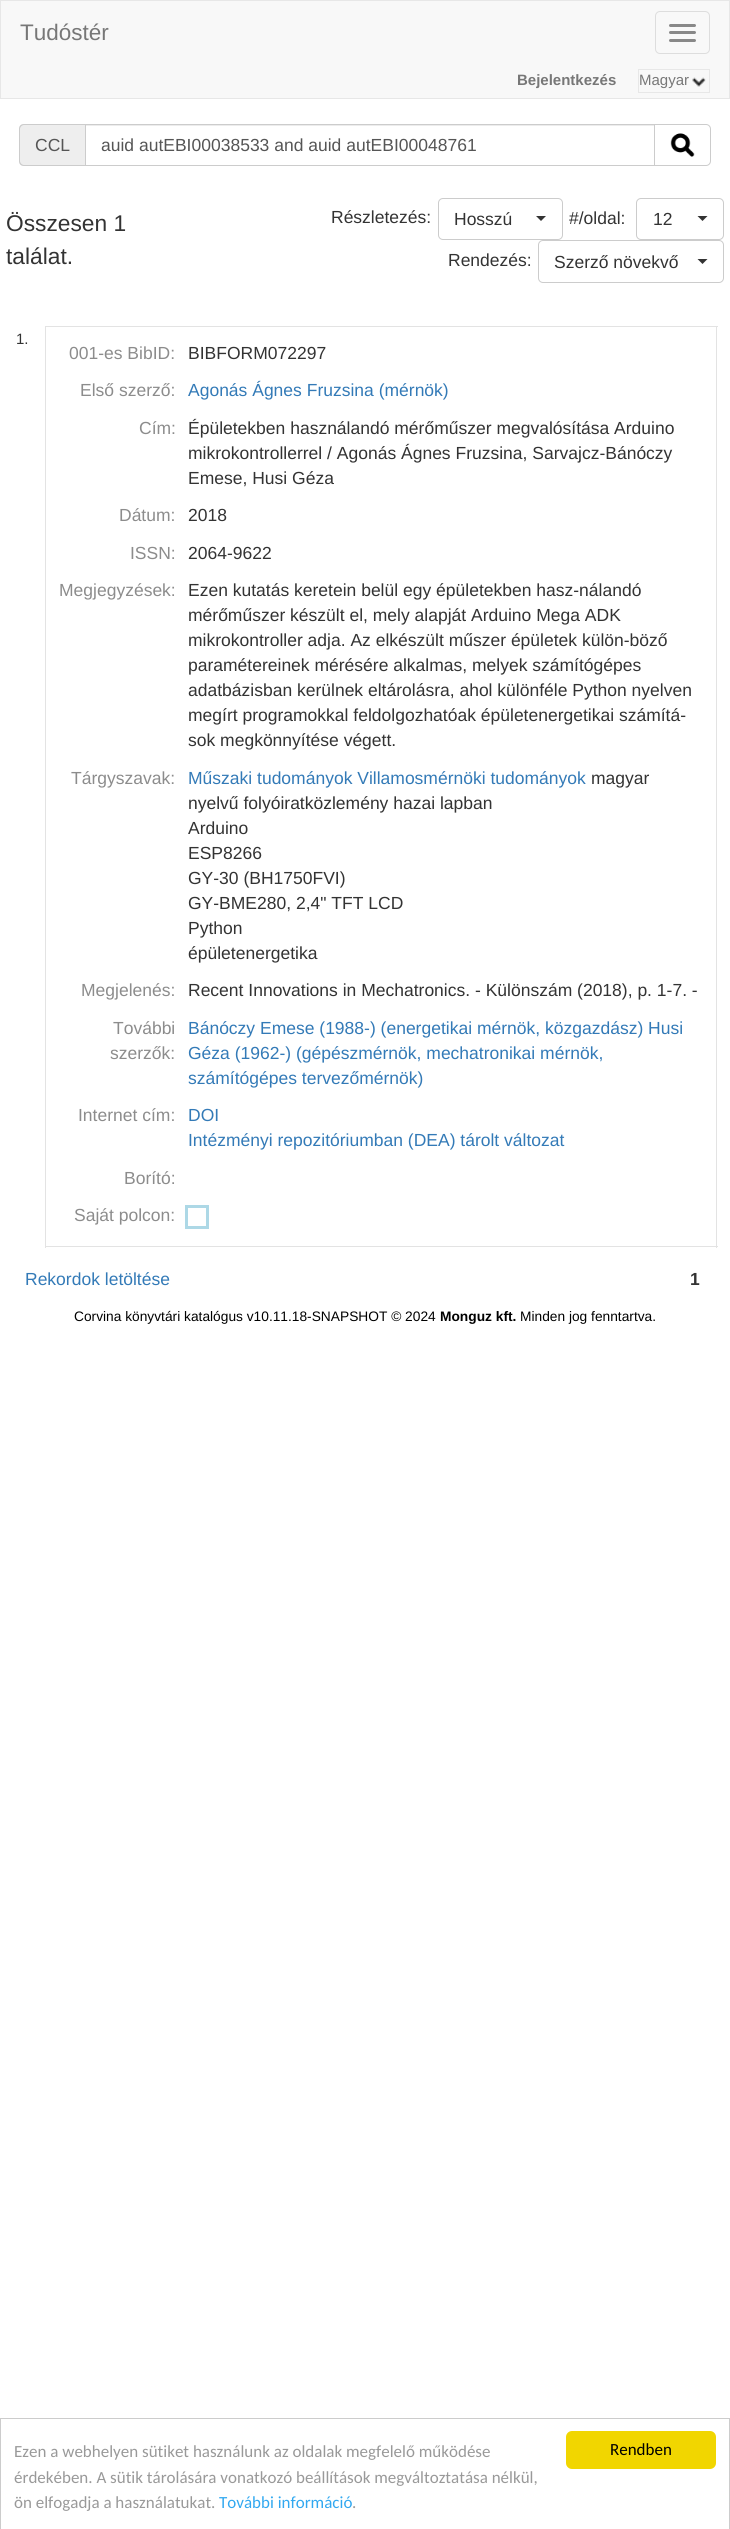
import math
import cairo



def rounded_rect(context, x, y, w, h, r):
    context.new_sub_path()
    for i, (u, v) in enumerate([(x + w - r, y + h - r), (x + r, y + h - r), (x + r, y + r), (x + w - r, y + r)]):
        context.arc(u, v, r, i * math.pi / 2, (i + 1) * math.pi / 2)
    context.close_path()


def draw_image(context, path, x, y, w, h):
    context.save()
    context.set_source_surface(cairo.ImageSurface.create_from_png(path), x, y)
    context.rectangle(x, y, w, h)
    context.fill()
    context.restore()


def draw(context):
    context.set_source_rgb(1, 1, 1)
    context.paint()
    context.set_source_rgb(248 / 255, 248 / 255, 248 / 255)
    context.rectangle(0.5, 0.5, 729, 98)
    context.fill_preserve()
    context.set_source_rgb(231 / 255, 231 / 255, 231 / 255)
    context.set_line_width(1)
    context.stroke()
    rounded_rect(context, 655.5, 11.5, 54, 42, 4.5)
    context.set_source_rgb(221 / 255, 221 / 255, 221 / 255)
    context.stroke()
    context.set_source_rgb(136 / 255, 136 / 255, 136 / 255)
    rounded_rect(context, 669, 24, 27, 3, 1.5)
    context.fill()
    rounded_rect(context, 669, 31, 27, 3, 1.5)
    context.fill()
    rounded_rect(context, 669, 39, 27, 3, 1.5)
    context.fill()
    draw_image(context, "images/1.png", 692, 77, 14, 10)
    context.rectangle(638.5, 69.5, 71, 23)
    context.set_source_rgb(231 / 255, 231 / 255, 231 / 255)
    context.stroke()
    context.set_source_rgb(238 / 255, 238 / 255, 238 / 255)
    context.new_path()
    context.move_to(24, 124)
    context.line_to(85, 124)
    context.line_to(85, 166)
    context.line_to(24, 166)
    context.curve_to(21, 166, 19, 164, 19, 161)
    context.line_to(19, 129)
    context.curve_to(19, 126, 21, 124, 24, 124)
    context.close_path()
    context.fill()
    context.set_source_rgb(204 / 255, 204 / 255, 204 / 255)
    context.set_fill_rule(cairo.FillRule.EVEN_ODD)
    context.new_path()
    context.move_to(24, 124)
    context.line_to(85, 124)
    context.line_to(85, 166)
    context.line_to(24, 166)
    context.curve_to(21, 166, 19, 164, 19, 161)
    context.line_to(19, 129)
    context.curve_to(19, 126, 21, 124, 24, 124)
    context.close_path()
    context.move_to(24, 125)
    context.line_to(85, 125)
    context.line_to(85, 165)
    context.line_to(24, 165)
    context.curve_to(22, 165, 20, 163, 20, 161)
    context.line_to(20, 129)
    context.curve_to(20, 127, 22, 125, 24, 125)
    context.close_path()
    context.fill()
    context.set_source_rgb(236 / 255, 236 / 255, 236 / 255)
    context.rectangle(86, 125, 568, 1)
    context.fill()
    context.rectangle(85.5, 124.5, 569, 41)
    context.set_source_rgb(204 / 255, 204 / 255, 204 / 255)
    context.stroke()
    context.set_source_rgb(1, 1, 1)
    context.new_path()
    context.move_to(654.5, 124.5)
    context.line_to(706, 124.5)
    context.curve_to(708.5, 124.5, 710.5, 126.5, 710.5, 129)
    context.line_to(710.5, 161)
    context.curve_to(710.5, 163.5, 708.5, 165.5, 706, 165.5)
    context.line_to(654.5, 165.5)
    context.close_path()
    context.fill_preserve()
    context.set_source_rgb(204 / 255, 204 / 255, 204 / 255)
    context.stroke()
    draw_image(context, "images/2.png", 670, 133, 25, 24)
    rounded_rect(context, 438.5, 198.5, 124, 41, 4.5)
    context.stroke()
    context.set_source_rgb(51 / 255, 51 / 255, 51 / 255)
    context.set_fill_rule(cairo.FillRule.WINDING)
    context.new_path()
    context.move_to(536, 216)
    context.line_to(546, 216)
    context.line_to(541, 221)
    context.close_path()
    context.fill()
    rounded_rect(context, 636.5, 198.5, 87, 41, 4.5)
    context.set_source_rgb(204 / 255, 204 / 255, 204 / 255)
    context.stroke()
    context.set_source_rgb(51 / 255, 51 / 255, 51 / 255)
    context.new_path()
    context.move_to(697.5, 216)
    context.line_to(707.5, 216)
    context.line_to(702.5, 221)
    context.close_path()
    context.fill()
    rounded_rect(context, 538.5, 240.5, 185, 42, 4.5)
    context.set_source_rgb(204 / 255, 204 / 255, 204 / 255)
    context.stroke()
    context.set_source_rgb(51 / 255, 51 / 255, 51 / 255)
    context.new_path()
    context.move_to(697.5, 259)
    context.line_to(707.5, 259)
    context.line_to(702.5, 264)
    context.close_path()
    context.fill()
    context.set_source_rgb(227 / 255, 227 / 255, 227 / 255)
    context.rectangle(45, 326, 673, 1)
    context.fill()
    context.rectangle(716, 326, 1, 922)
    context.fill()
    context.rectangle(45, 1246, 673, 1)
    context.fill()
    context.rectangle(45, 326, 1, 922)
    context.fill()
    context.rectangle(186.5, 1206.5, 21, 21)
    context.set_source_rgb(173 / 255, 216 / 255, 230 / 255)
    context.set_line_width(3)
    context.stroke()
    context.rectangle(0.5, 2418.5, 729, 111)
    context.set_source_rgb(204 / 255, 204 / 255, 204 / 255)
    context.set_line_width(1)
    context.stroke()
    context.set_source_rgb(241 / 255, 214 / 255, 0)
    rounded_rect(context, 566, 2431, 150, 38, 6)
    context.fill()
    context.select_font_face("Liberation Sans")
    context.set_font_size(22.5)
    context.set_source_rgb(119 / 255, 119 / 255, 119 / 255)
    context.move_to(20, 40)
    context.show_text("Tudóstér")
    context.select_font_face("Liberation Sans", cairo.FontSlant.NORMAL, cairo.FontWeight.BOLD)
    context.set_font_size(15)
    context.move_to(517, 85)
    context.show_text("Bejelentkezés")
    context.select_font_face("Liberation Sans")
    context.move_to(639, 85)
    context.show_text("Magyar")
    context.set_font_size(17.5)
    context.set_source_rgb(85 / 255, 85 / 255, 85 / 255)
    context.move_to(35, 151)
    context.show_text("CCL")
    context.move_to(101, 151)
    context.show_text("auid autEBI00038533 and auid autEBI00048761")
    context.set_font_size(22.75)
    context.set_source_rgb(51 / 255, 51 / 255, 51 / 255)
    context.move_to(6, 231)
    context.show_text("Összesen 1")
    context.move_to(6, 264)
    context.show_text("találat.")
    context.set_font_size(17.5)
    context.move_to(331, 223)
    context.show_text("Részletezés:")
    context.move_to(454, 225)
    context.show_text("Hosszú")
    context.move_to(569, 224)
    context.show_text("#/oldal:")
    context.move_to(653, 225)
    context.show_text("12")
    context.move_to(448, 266)
    context.show_text("Rendezés:")
    context.move_to(554, 268)
    context.show_text("Szerző növekvő")
    context.set_font_size(15)
    context.move_to(16, 344)
    context.show_text("1.")
    context.set_font_size(17.5)
    context.set_source_rgb(140 / 255, 140 / 255, 140 / 255)
    context.move_to(69, 359)
    context.show_text("001-es BibID:")
    context.set_source_rgb(51 / 255, 51 / 255, 51 / 255)
    context.move_to(188, 359)
    context.show_text("BIBFORM072297")
    context.set_source_rgb(140 / 255, 140 / 255, 140 / 255)
    context.move_to(80, 396)
    context.show_text("Első szerző:")
    context.set_source_rgb(51 / 255, 122 / 255, 183 / 255)
    context.move_to(188, 396)
    context.show_text("Agonás Ágnes Fruzsina (mérnök)")
    context.set_source_rgb(140 / 255, 140 / 255, 140 / 255)
    context.move_to(139, 434)
    context.show_text("Cím:")
    context.set_source_rgb(51 / 255, 51 / 255, 51 / 255)
    context.move_to(188, 434)
    context.show_text("Épületekben használandó mérőműszer megvalósítása Arduino")
    context.move_to(188, 459)
    context.show_text("mikrokontrollerrel / Agonás Ágnes Fruzsina, Sarvajcz-Bánóczy")
    context.move_to(188, 484)
    context.show_text("Emese, Husi Géza")
    context.set_source_rgb(140 / 255, 140 / 255, 140 / 255)
    context.move_to(119, 521)
    context.show_text("Dátum:")
    context.set_source_rgb(51 / 255, 51 / 255, 51 / 255)
    context.move_to(188, 521)
    context.show_text("2018")
    context.set_source_rgb(140 / 255, 140 / 255, 140 / 255)
    context.move_to(130, 559)
    context.show_text("ISSN:")
    context.set_source_rgb(51 / 255, 51 / 255, 51 / 255)
    context.move_to(188, 559)
    context.show_text("2064-9622")
    context.set_source_rgb(140 / 255, 140 / 255, 140 / 255)
    context.move_to(59, 596)
    context.show_text("Megjegyzések:")
    context.set_source_rgb(51 / 255, 51 / 255, 51 / 255)
    context.move_to(188, 596)
    context.show_text("Ezen kutatás keretein belül egy épületekben hasz-nálandó")
    context.move_to(188, 621)
    context.show_text("mérőműszer készült el, mely alapját Arduino Mega ADK")
    context.move_to(188, 646)
    context.show_text("mikrokontroller adja. Az elkészült műszer épületek külön-böző")
    context.move_to(188, 671)
    context.show_text("paramétereinek mérésére alkalmas, melyek számítógépes")
    context.move_to(188, 696)
    context.show_text("adatbázisban kerülnek eltárolásra, ahol különféle Python nyelven")
    context.move_to(188, 721)
    context.show_text("megírt programokkal feldolgozhatóak épületenergetikai számítá-")
    context.move_to(188, 746)
    context.show_text("sok megkönnyítése végett.")
    context.set_source_rgb(140 / 255, 140 / 255, 140 / 255)
    context.move_to(71, 784)
    context.show_text("Tárgyszavak:")
    context.set_source_rgb(51 / 255, 122 / 255, 183 / 255)
    context.move_to(188, 784)
    context.show_text("Műszaki tudományok Villamosmérnöki tudományok")
    context.set_source_rgb(51 / 255, 51 / 255, 51 / 255)
    context.move_to(591, 784)
    context.show_text("magyar")
    context.move_to(188, 809)
    context.show_text("nyelvű folyóiratközlemény hazai lapban")
    context.move_to(188, 834)
    context.show_text("Arduino")
    context.move_to(188, 859)
    context.show_text("ESP8266")
    context.move_to(188, 884)
    context.show_text("GY-30 (BH1750FVI)")
    context.move_to(188, 909)
    context.show_text("GY-BME280, 2,4\" TFT LCD")
    context.move_to(188, 934)
    context.show_text("Python")
    context.move_to(188, 959)
    context.show_text("épületenergetika")
    context.set_source_rgb(140 / 255, 140 / 255, 140 / 255)
    context.move_to(81, 996)
    context.show_text("Megjelenés:")
    context.set_source_rgb(51 / 255, 51 / 255, 51 / 255)
    context.move_to(188, 996)
    context.show_text("Recent Innovations in Mechatronics. - Különszám (2018), p. 1-7. -")
    context.set_source_rgb(140 / 255, 140 / 255, 140 / 255)
    context.move_to(113, 1034)
    context.show_text("További")
    context.move_to(110, 1059)
    context.show_text("szerzők:")
    context.set_source_rgb(51 / 255, 122 / 255, 183 / 255)
    context.move_to(188, 1034)
    context.show_text("Bánóczy Emese (1988-) (energetikai mérnök, közgazdász) Husi")
    context.move_to(188, 1059)
    context.show_text("Géza (1962-) (gépészmérnök, mechatronikai mérnök,")
    context.move_to(188, 1084)
    context.show_text("számítógépes tervezőmérnök)")
    context.set_source_rgb(140 / 255, 140 / 255, 140 / 255)
    context.move_to(78, 1121)
    context.show_text("Internet cím:")
    context.set_source_rgb(51 / 255, 122 / 255, 183 / 255)
    context.move_to(188, 1121)
    context.show_text("DOI")
    context.move_to(188, 1146)
    context.show_text("Intézményi repozitóriumban (DEA) tárolt változat")
    context.set_source_rgb(140 / 255, 140 / 255, 140 / 255)
    context.move_to(124, 1184)
    context.show_text("Borító:")
    context.move_to(74, 1221)
    context.show_text("Saját polcon:")
    context.set_source_rgb(51 / 255, 122 / 255, 183 / 255)
    context.move_to(25, 1285)
    context.show_text("Rekordok letöltése")
    context.select_font_face("Liberation Sans", cairo.FontSlant.NORMAL, cairo.FontWeight.BOLD)
    context.set_source_rgb(51 / 255, 51 / 255, 51 / 255)
    context.move_to(690, 1285)
    context.show_text("1")
    context.select_font_face("Liberation Sans")
    context.set_font_size(13.75)
    context.set_source_rgb(0, 0, 0)
    context.move_to(74, 1321)
    context.show_text("Corvina könyvtári katalógus v10.11.18-SNAPSHOT © 2024")
    context.select_font_face("Liberation Sans", cairo.FontSlant.NORMAL, cairo.FontWeight.BOLD)
    context.move_to(440, 1321)
    context.show_text("Monguz kft.")
    context.select_font_face("Liberation Sans")
    context.move_to(520, 1321)
    context.show_text("Minden jog fenntartva.")
    context.select_font_face("Carlito")
    context.set_font_size(17)
    context.set_source_rgb(153 / 255, 153 / 255, 153 / 255)
    context.move_to(14, 2457)
    context.show_text("Ezen a webhelyen sütiket használunk az oldalak megfelelő működése")
    context.move_to(14, 2483)
    context.show_text("érdekében. A sütik tárolására vonatkozó beállítások megváltoztatása nélkül,")
    context.move_to(14, 2508)
    context.show_text("ön elfogadja a használatukat.")
    context.set_source_rgb(49 / 255, 168 / 255, 240 / 255)
    context.move_to(219, 2508)
    context.show_text("További információ")
    context.set_source_rgb(153 / 255, 153 / 255, 153 / 255)
    context.move_to(352, 2508)
    context.show_text(".")
    context.set_source_rgb(0, 0, 0)
    context.move_to(610, 2455)
    context.show_text("Rendben")


surface = cairo.ImageSurface(cairo.Format.RGB24, 730, 2529)
context = cairo.Context(surface)
options = cairo.FontOptions()
options.set_hint_metrics(cairo.HintMetrics.OFF)
options.set_hint_style(cairo.HintStyle.NONE)
context.set_font_options(options)
context.set_miter_limit(4)
draw(context)
surface.write_to_png("out.png")
